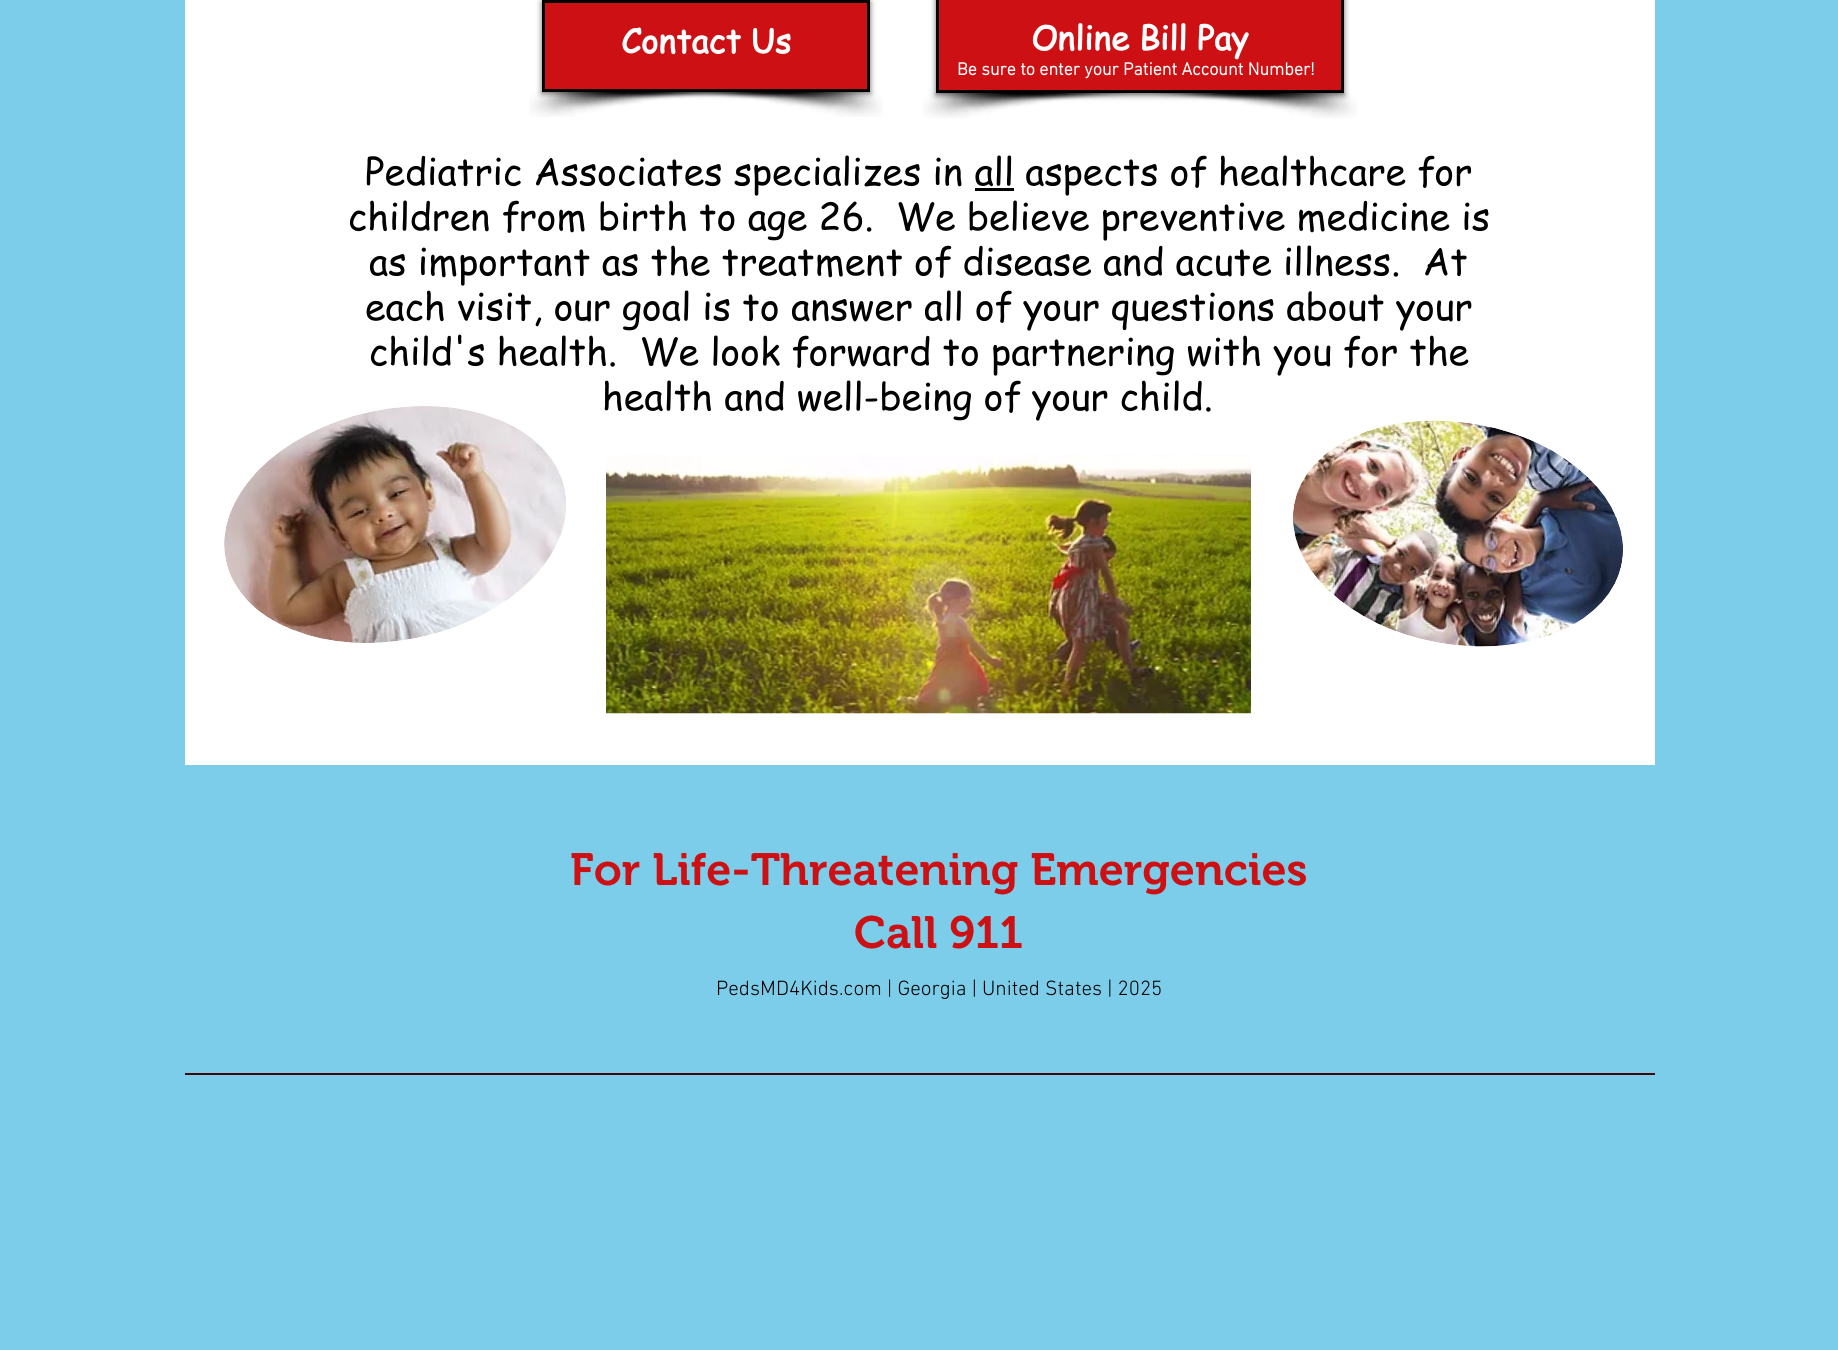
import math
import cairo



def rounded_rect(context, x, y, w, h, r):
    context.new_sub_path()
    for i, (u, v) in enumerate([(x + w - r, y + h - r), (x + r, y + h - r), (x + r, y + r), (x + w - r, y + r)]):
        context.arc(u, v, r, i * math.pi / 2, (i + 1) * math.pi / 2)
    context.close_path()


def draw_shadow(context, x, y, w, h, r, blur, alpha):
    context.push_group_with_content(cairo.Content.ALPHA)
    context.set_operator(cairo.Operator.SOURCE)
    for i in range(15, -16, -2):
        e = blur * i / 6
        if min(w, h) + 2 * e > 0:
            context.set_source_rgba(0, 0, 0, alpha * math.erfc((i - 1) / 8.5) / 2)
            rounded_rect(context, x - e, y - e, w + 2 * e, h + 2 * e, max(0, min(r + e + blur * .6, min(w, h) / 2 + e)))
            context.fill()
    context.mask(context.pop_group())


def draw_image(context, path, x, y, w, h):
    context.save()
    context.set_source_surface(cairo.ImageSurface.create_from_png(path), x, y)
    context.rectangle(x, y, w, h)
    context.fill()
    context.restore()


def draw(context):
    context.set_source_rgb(124 / 255, 205 / 255, 234 / 255)
    context.paint()
    context.set_source_rgb(1, 1, 1)
    context.rectangle(185, 0, 1470, 765)
    context.fill()
    draw_image(context, "images/1.png", 529, 91, 220, 26)
    draw_image(context, "images/2.png", 676, 91, 207, 26)
    context.set_source_rgb(0, 0, 0)
    draw_shadow(context, 542, 2, 328, 91, 0, 3, 0.6)
    context.set_source_rgb(204 / 255, 16 / 255, 19 / 255)
    context.rectangle(543.5, 1.5, 325, 89)
    context.fill_preserve()
    context.set_source_rgb(0, 0, 0)
    context.set_line_width(3)
    context.stroke()
    draw_image(context, "images/3.png", 923, 93, 223, 26)
    draw_image(context, "images/4.png", 1134, 93, 223, 26)
    context.set_source_rgb(0, 0, 0)
    draw_shadow(context, 936, -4, 408, 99, 0, 3, 0.6)
    context.set_source_rgb(204 / 255, 16 / 255, 19 / 255)
    context.rectangle(937.5, -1.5, 405, 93)
    context.fill_preserve()
    context.set_source_rgb(0, 0, 0)
    context.stroke()
    context.rectangle(975, 188, 39, 3)
    context.fill()
    draw_image(context, "images/5.png", 224, 406, 342, 237)
    draw_image(context, "images/6.png", 606, 454, 645, 260)
    draw_image(context, "images/7.png", 1293, 420, 330, 227)
    context.set_source_rgb(68 / 255, 5 / 255, 6 / 255)
    context.rectangle(185, 1073, 1470, 2)
    context.fill()
    context.select_font_face("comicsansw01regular", cairo.FontSlant.NORMAL, cairo.FontWeight.BOLD)
    context.set_font_size(33)
    context.set_source_rgb(1, 1, 1)
    context.move_to(621, 53)
    context.show_text("Contact Us")
    context.move_to(1031, 50)
    context.show_text("Online Bill Pay")
    context.select_font_face("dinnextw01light", cairo.FontSlant.NORMAL, cairo.FontWeight.BOLD)
    context.set_font_size(18)
    context.move_to(957, 75)
    context.show_text("Be sure to enter your Patient Account Number!")
    context.select_font_face("comicsansw01regular")
    context.set_font_size(37.5)
    context.set_source_rgb(0, 0, 0)
    context.move_to(365, 185)
    context.show_text("Pediatric Associates specializes in all aspects of healthcare for")
    context.move_to(348, 230)
    context.show_text("children from birth to age 26.  We believe preventive medicine is")
    context.move_to(369, 275)
    context.show_text("as important as the treatment of disease and acute illness.  At")
    context.move_to(365, 320)
    context.show_text("each visit, our goal is to answer all of your questions about your")
    context.move_to(369, 365)
    context.show_text("child's health.  We look forward to partnering with you for the")
    context.move_to(602, 410)
    context.show_text("health and well-being of your child.")
    context.select_font_face("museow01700 SemiBold")
    context.set_font_size(45)
    context.set_source_rgb(204 / 255, 16 / 255, 19 / 255)
    context.move_to(570, 885)
    context.show_text("For Life-Threatening Emergencies")
    context.move_to(854, 948)
    context.show_text("Call 911")
    context.select_font_face("dinnextw01light Light")
    context.set_font_size(21)
    context.set_source_rgb(0, 0, 0)
    context.move_to(716, 995)
    context.show_text("PedsMD4Kids.com | Georgia | United States | 2025")


surface = cairo.ImageSurface(cairo.Format.RGB24, 1838, 1350)
context = cairo.Context(surface)
options = cairo.FontOptions()
options.set_hint_metrics(cairo.HintMetrics.OFF)
options.set_hint_style(cairo.HintStyle.NONE)
context.set_font_options(options)
context.set_miter_limit(4)
draw(context)
surface.write_to_png("out.png")
